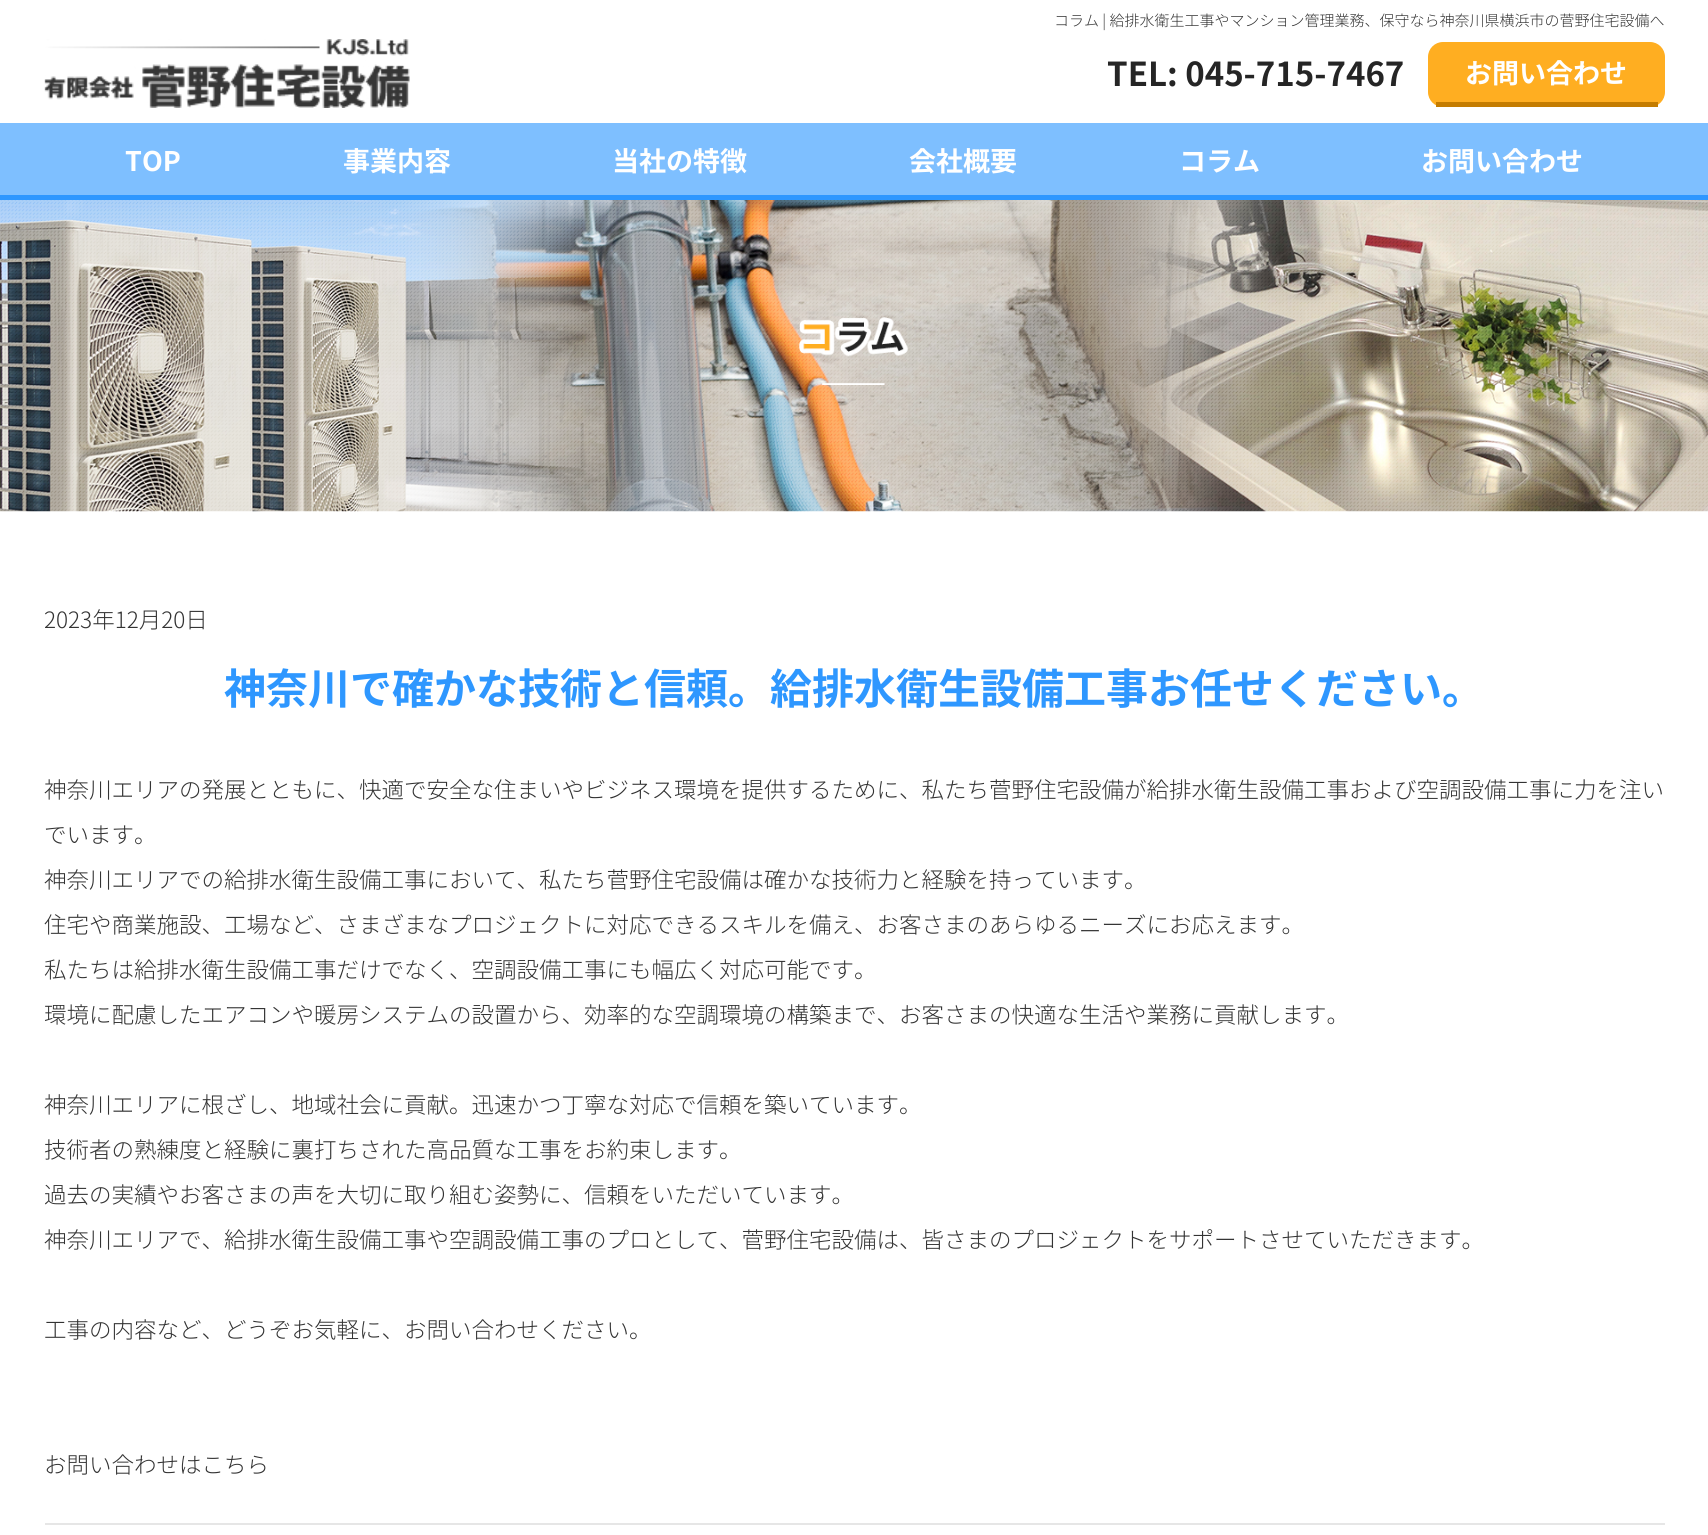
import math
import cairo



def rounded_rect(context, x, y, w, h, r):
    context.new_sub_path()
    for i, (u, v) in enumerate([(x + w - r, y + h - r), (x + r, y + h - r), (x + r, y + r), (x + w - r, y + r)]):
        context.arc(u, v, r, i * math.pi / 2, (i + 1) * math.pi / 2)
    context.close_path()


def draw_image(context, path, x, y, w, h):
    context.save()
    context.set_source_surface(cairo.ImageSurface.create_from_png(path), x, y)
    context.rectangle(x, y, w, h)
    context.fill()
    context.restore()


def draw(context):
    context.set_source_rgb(1, 1, 1)
    context.paint()
    draw_image(context, "images/1.png", 44, 39, 366, 69)
    context.set_source_rgb(1, 174 / 255, 33 / 255)
    rounded_rect(context, 1428, 42, 237, 65, 15)
    context.fill()
    context.set_source_rgb(196 / 255, 124 / 255, 0)
    context.rectangle(1436, 102, 222, 5)
    context.fill()
    context.set_source_rgb(126 / 255, 191 / 255, 1)
    context.rectangle(0, 123, 1708, 72)
    context.fill()
    context.set_source_rgb(46 / 255, 151 / 255, 1)
    context.rectangle(0, 195, 1708, 5)
    context.fill()
    draw_image(context, "images/2.png", 0, 200, 1708, 312)
    context.set_source_rgb(230 / 255, 230 / 255, 230 / 255)
    context.rectangle(45, 1523, 1620, 2)
    context.fill()
    context.select_font_face("Noto Sans JP Light")
    context.set_font_size(15)
    context.set_source_rgb(51 / 255, 51 / 255, 51 / 255)
    context.move_to(1054, 26)
    context.show_text("コラム | 給排水衛生工事やマンション管理業務、保守なら神奈川県横浜市の菅野住宅設備へ")
    context.select_font_face("Noto Sans JP", cairo.FontSlant.NORMAL, cairo.FontWeight.BOLD)
    context.set_font_size(33)
    context.set_source_rgb(37 / 255, 37 / 255, 37 / 255)
    context.move_to(1107, 86)
    context.show_text("TEL: 045-715-7467")
    context.set_font_size(27)
    context.set_source_rgb(1, 1, 1)
    context.move_to(1465, 83)
    context.show_text("お問い合わせ")
    context.move_to(125, 171)
    context.show_text("TOP")
    context.move_to(343, 171)
    context.show_text("事業内容")
    context.move_to(612, 171)
    context.show_text("当社の特徴")
    context.move_to(909, 171)
    context.show_text("会社概要")
    context.move_to(1179, 171)
    context.show_text("コラム")
    context.move_to(1421, 171)
    context.show_text("お問い合わせ")
    context.select_font_face("Noto Sans JP Light")
    context.set_font_size(22.5)
    context.set_source_rgb(51 / 255, 51 / 255, 51 / 255)
    context.move_to(44, 628)
    context.show_text("2023年12月20日")
    context.select_font_face("Noto Sans JP", cairo.FontSlant.NORMAL, cairo.FontWeight.BOLD)
    context.set_font_size(42)
    context.set_source_rgb(46 / 255, 151 / 255, 1)
    context.move_to(224, 704)
    context.show_text("神奈川で確かな技術と信頼。給排水衛生設備工事お任せください。")
    context.select_font_face("Noto Sans JP Light")
    context.set_font_size(22.5)
    context.set_source_rgb(51 / 255, 51 / 255, 51 / 255)
    context.move_to(44, 798)
    context.show_text("神奈川エリアの発展とともに、快適で安全な住まいやビジネス環境を提供するために、私たち菅野住宅設備が給排水衛生設備工事および空調設備工事に力を注い")
    context.move_to(44, 843)
    context.show_text("でいます。")
    context.move_to(44, 888)
    context.show_text("神奈川エリアでの給排水衛生設備工事において、私たち菅野住宅設備は確かな技術力と経験を持っています。")
    context.move_to(44, 933)
    context.show_text("住宅や商業施設、工場など、さまざまなプロジェクトに対応できるスキルを備え、お客さまのあらゆるニーズにお応えます。")
    context.move_to(44, 978)
    context.show_text("私たちは給排水衛生設備工事だけでなく、空調設備工事にも幅広く対応可能です。")
    context.move_to(44, 1023)
    context.show_text("環境に配慮したエアコンや暖房システムの設置から、効率的な空調環境の構築まで、お客さまの快適な生活や業務に貢献します。")
    context.move_to(44, 1113)
    context.show_text("神奈川エリアに根ざし、地域社会に貢献。迅速かつ丁寧な対応で信頼を築いています。")
    context.move_to(44, 1158)
    context.show_text("技術者の熟練度と経験に裏打ちされた高品質な工事をお約束します。")
    context.move_to(44, 1203)
    context.show_text("過去の実績やお客さまの声を大切に取り組む姿勢に、信頼をいただいています。")
    context.move_to(44, 1248)
    context.show_text("神奈川エリアで、給排水衛生設備工事や空調設備工事のプロとして、菅野住宅設備は、皆さまのプロジェクトをサポートさせていただきます。")
    context.move_to(44, 1338)
    context.show_text("工事の内容など、どうぞお気軽に、お問い合わせください。")
    context.move_to(44, 1473)
    context.show_text("お問い合わせはこちら")


surface = cairo.ImageSurface(cairo.Format.RGB24, 1708, 1535)
context = cairo.Context(surface)
options = cairo.FontOptions()
options.set_hint_metrics(cairo.HintMetrics.OFF)
options.set_hint_style(cairo.HintStyle.NONE)
context.set_font_options(options)
context.set_miter_limit(4)
draw(context)
surface.write_to_png("out.png")
